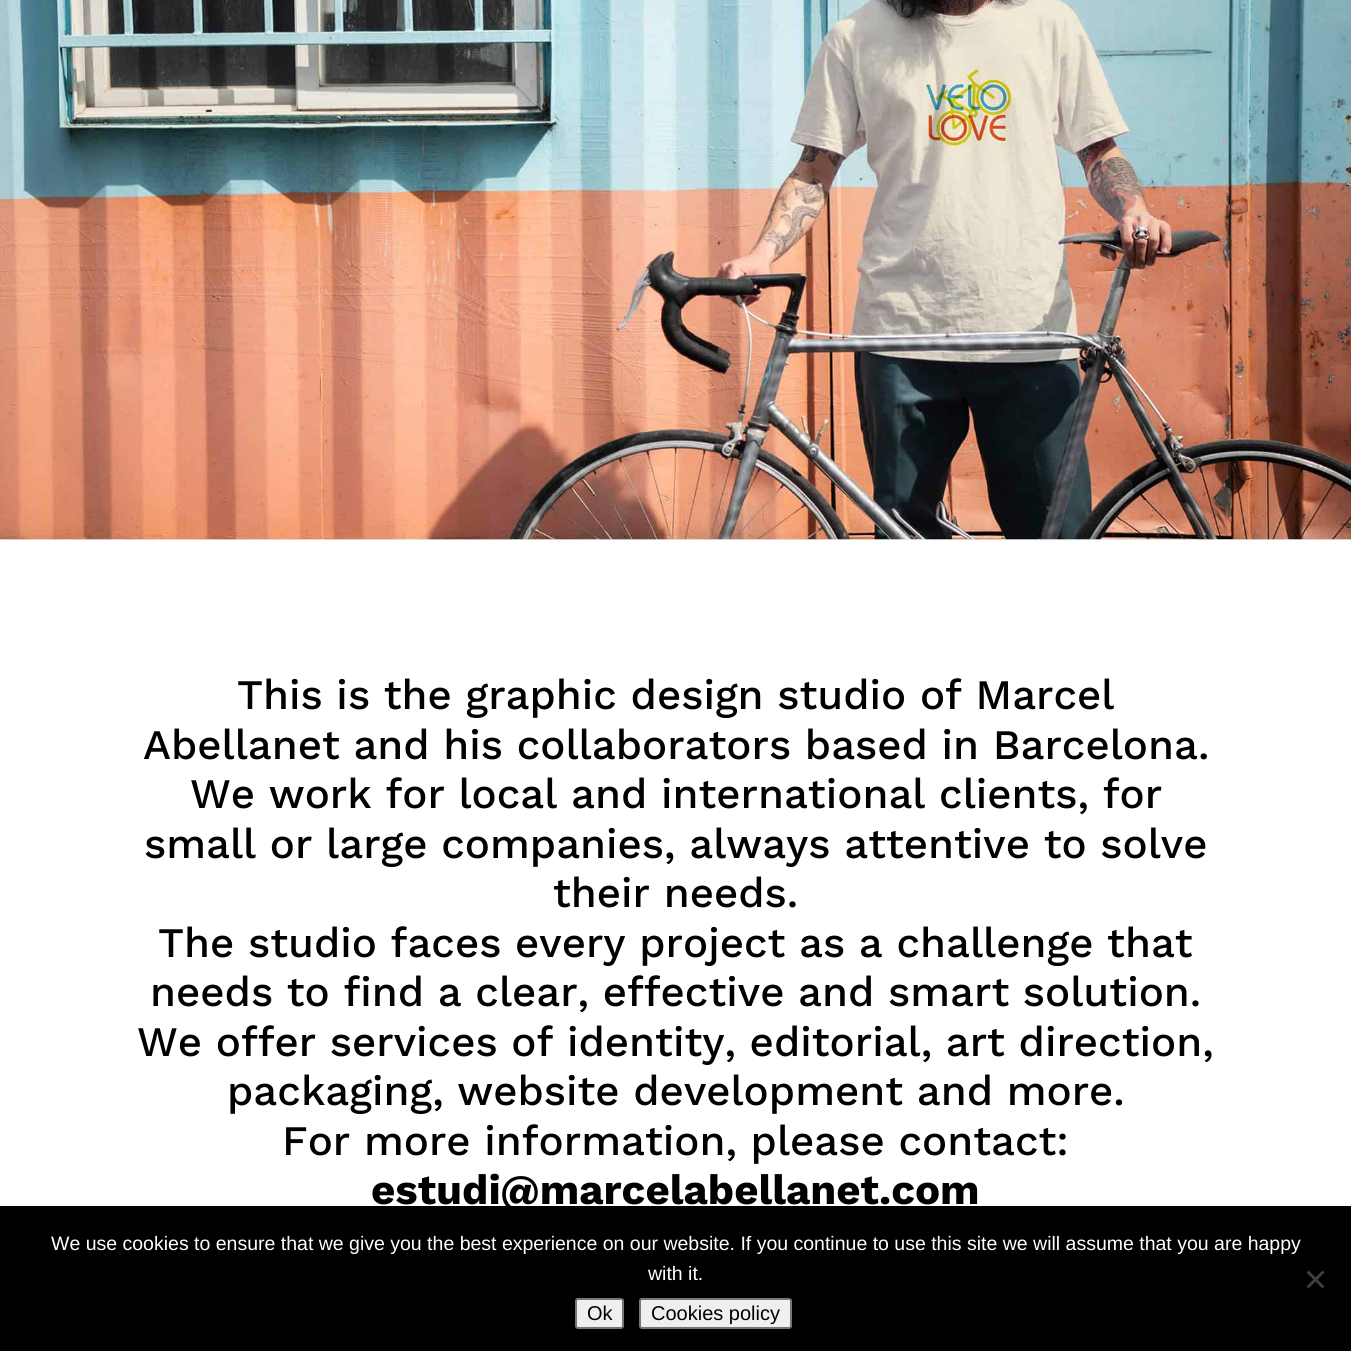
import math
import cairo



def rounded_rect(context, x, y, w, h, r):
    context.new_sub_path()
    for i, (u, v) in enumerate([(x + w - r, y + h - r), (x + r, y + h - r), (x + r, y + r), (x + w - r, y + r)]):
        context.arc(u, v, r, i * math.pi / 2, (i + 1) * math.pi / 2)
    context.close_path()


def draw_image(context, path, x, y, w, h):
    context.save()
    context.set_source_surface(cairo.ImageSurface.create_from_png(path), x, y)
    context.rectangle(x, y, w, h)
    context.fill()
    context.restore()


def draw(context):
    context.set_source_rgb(1, 1, 1)
    context.paint()
    context.set_source_rgb(235 / 255, 235 / 255, 235 / 255)
    context.rectangle(0, 539, 1351, 1)
    context.fill()
    draw_image(context, "images/1.png", 0, 0, 1351, 540)
    context.set_source_rgb(0, 0, 0)
    context.rectangle(0, 1206, 1351, 145)
    context.fill()
    context.set_source_rgb(64 / 255, 64 / 255, 64 / 255)
    context.new_path()
    context.move_to(1322.5, 1270.5)
    context.line_to(1324.5, 1272.5)
    context.line_to(1308.5, 1288.5)
    context.line_to(1306.5, 1286.5)
    context.close_path()
    context.fill()
    context.new_path()
    context.move_to(1306.5, 1272.5)
    context.line_to(1308.5, 1270.5)
    context.line_to(1324.5, 1286.5)
    context.line_to(1322.5, 1288.5)
    context.close_path()
    context.fill()
    context.set_source_rgb(239 / 255, 239 / 255, 239 / 255)
    rounded_rect(context, 576, 1299, 47, 29, 2)
    context.fill_preserve()
    context.set_source_rgb(118 / 255, 118 / 255, 118 / 255)
    context.stroke()
    context.set_source_rgb(239 / 255, 239 / 255, 239 / 255)
    rounded_rect(context, 640, 1299, 151, 29, 2)
    context.fill_preserve()
    context.set_source_rgb(118 / 255, 118 / 255, 118 / 255)
    context.stroke()
    context.select_font_face("Work Sans Medium")
    context.set_font_size(42)
    context.set_source_rgb(0, 0, 0)
    context.move_to(237, 709)
    context.show_text("This is the graphic design studio of Marcel")
    context.move_to(143, 759)
    context.show_text("Abellanet and his collaborators based in Barcelona.")
    context.move_to(190, 808)
    context.show_text("We work for local and international clients, for")
    context.move_to(144, 858)
    context.show_text("small or large companies, always attentive to solve")
    context.move_to(553, 907)
    context.show_text("their needs.")
    context.move_to(158, 957)
    context.show_text("The studio faces every project as a challenge that")
    context.move_to(150, 1006)
    context.show_text("needs to find a clear, effective and smart solution.")
    context.move_to(137, 1056)
    context.show_text("We offer services of identity, editorial, art direction,")
    context.move_to(227, 1105)
    context.show_text("packaging, website development and more.")
    context.move_to(282, 1155)
    context.show_text("For more information, please contact:")
    context.select_font_face("Work Sans", cairo.FontSlant.NORMAL, cairo.FontWeight.BOLD)
    context.move_to(371, 1204)
    context.show_text("estudi@marcelabellanet.com")
    context.select_font_face("Liberation Sans")
    context.set_font_size(19.5)
    context.set_source_rgb(1, 1, 1)
    context.move_to(51, 1250)
    context.show_text("We use cookies to ensure that we give you the best experience on our website. If you continue to use this site we will assume that you are happy")
    context.move_to(648, 1280)
    context.show_text("with it.")
    context.set_font_size(20)
    context.set_source_rgb(0, 0, 0)
    context.move_to(587, 1320)
    context.show_text("Ok")
    context.move_to(651, 1320)
    context.show_text("Cookies policy")


surface = cairo.ImageSurface(cairo.Format.RGB24, 1351, 1351)
context = cairo.Context(surface)
options = cairo.FontOptions()
options.set_hint_metrics(cairo.HintMetrics.OFF)
options.set_hint_style(cairo.HintStyle.NONE)
context.set_font_options(options)
context.set_miter_limit(4)
draw(context)
surface.write_to_png("out.png")
